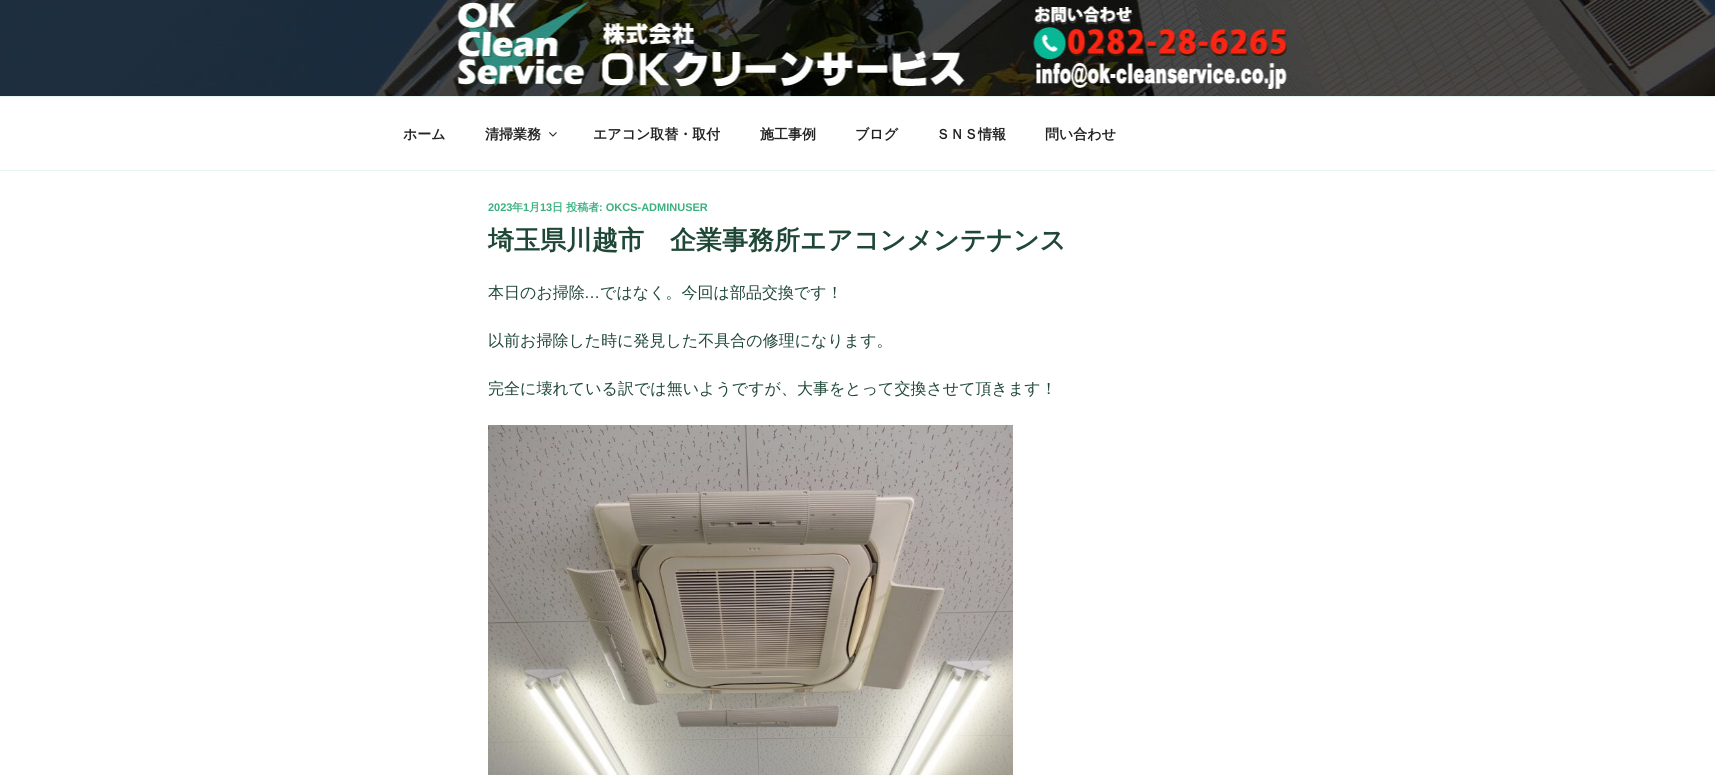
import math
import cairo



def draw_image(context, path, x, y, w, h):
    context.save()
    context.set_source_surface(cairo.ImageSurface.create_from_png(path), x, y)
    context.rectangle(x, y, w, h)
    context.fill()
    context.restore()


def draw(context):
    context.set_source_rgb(1, 1, 1)
    context.paint()
    draw_image(context, "images/1.png", 0, 0, 1715, 96)
    context.set_source_rgb(228 / 255, 246 / 255, 239 / 255)
    context.rectangle(0, 96, 1715, 1)
    context.fill()
    context.rectangle(0, 170, 1715, 1)
    context.fill()
    draw_image(context, "images/2.png", 549, 132, 8, 5)
    draw_image(context, "images/3.png", 488, 425, 525, 350)
    context.select_font_face("WenQuanYi Zen Hei", cairo.FontSlant.NORMAL, cairo.FontWeight.BOLD)
    context.set_font_size(14)
    context.set_source_rgb(34 / 255, 34 / 255, 34 / 255)
    context.move_to(403, 139)
    context.show_text("ホーム")
    context.move_to(485, 139)
    context.show_text("清掃業務")
    context.move_to(593, 139)
    context.show_text("エアコン取替・取付")
    context.move_to(760, 139)
    context.show_text("施工事例")
    context.move_to(855, 139)
    context.show_text("ブログ")
    context.move_to(936, 139)
    context.show_text("ＳＮＳ情報")
    context.move_to(1045, 139)
    context.show_text("問い合わせ")
    context.select_font_face("Liberation Sans", cairo.FontSlant.NORMAL, cairo.FontWeight.BOLD)
    context.set_font_size(11)
    context.set_source_rgb(59 / 255, 176 / 255, 129 / 255)
    context.move_to(488, 211)
    context.show_text("2023")
    context.select_font_face("WenQuanYi Zen Hei", cairo.FontSlant.NORMAL, cairo.FontWeight.BOLD)
    context.move_to(512, 211)
    context.show_text("年")
    context.select_font_face("Liberation Sans", cairo.FontSlant.NORMAL, cairo.FontWeight.BOLD)
    context.move_to(523, 211)
    context.show_text("1")
    context.select_font_face("WenQuanYi Zen Hei", cairo.FontSlant.NORMAL, cairo.FontWeight.BOLD)
    context.move_to(529, 211)
    context.show_text("月")
    context.select_font_face("Liberation Sans", cairo.FontSlant.NORMAL, cairo.FontWeight.BOLD)
    context.move_to(540, 211)
    context.show_text("13")
    context.select_font_face("WenQuanYi Zen Hei", cairo.FontSlant.NORMAL, cairo.FontWeight.BOLD)
    context.move_to(552, 211)
    context.show_text("日 投稿者")
    context.select_font_face("Liberation Sans", cairo.FontSlant.NORMAL, cairo.FontWeight.BOLD)
    context.move_to(599, 211)
    context.show_text(": OKCS-ADMINUSER")
    context.select_font_face("WenQuanYi Zen Hei", cairo.FontSlant.NORMAL, cairo.FontWeight.BOLD)
    context.set_font_size(26)
    context.set_source_rgb(31 / 255, 71 / 255, 55 / 255)
    context.move_to(488, 249)
    context.show_text("埼玉県川越市　企業事務所エアコンメンテナンス")
    context.select_font_face("WenQuanYi Zen Hei Medium")
    context.set_font_size(16)
    context.move_to(488, 298)
    context.show_text("本日のお掃除")
    context.select_font_face("Liberation Sans")
    context.move_to(584, 298)
    context.show_text("…")
    context.select_font_face("WenQuanYi Zen Hei Medium")
    context.move_to(600, 298)
    context.show_text("ではなく。今回は部品交換です！")
    context.move_to(488, 346)
    context.show_text("以前お掃除した時に発見した不具合の修理になります。")
    context.move_to(488, 394)
    context.show_text("完全に壊れている訳では無いようですが、大事をとって交換させて頂きます！")


surface = cairo.ImageSurface(cairo.Format.RGB24, 1715, 775)
context = cairo.Context(surface)
options = cairo.FontOptions()
options.set_hint_metrics(cairo.HintMetrics.OFF)
options.set_hint_style(cairo.HintStyle.NONE)
context.set_font_options(options)
context.set_miter_limit(4)
draw(context)
surface.write_to_png("out.png")
